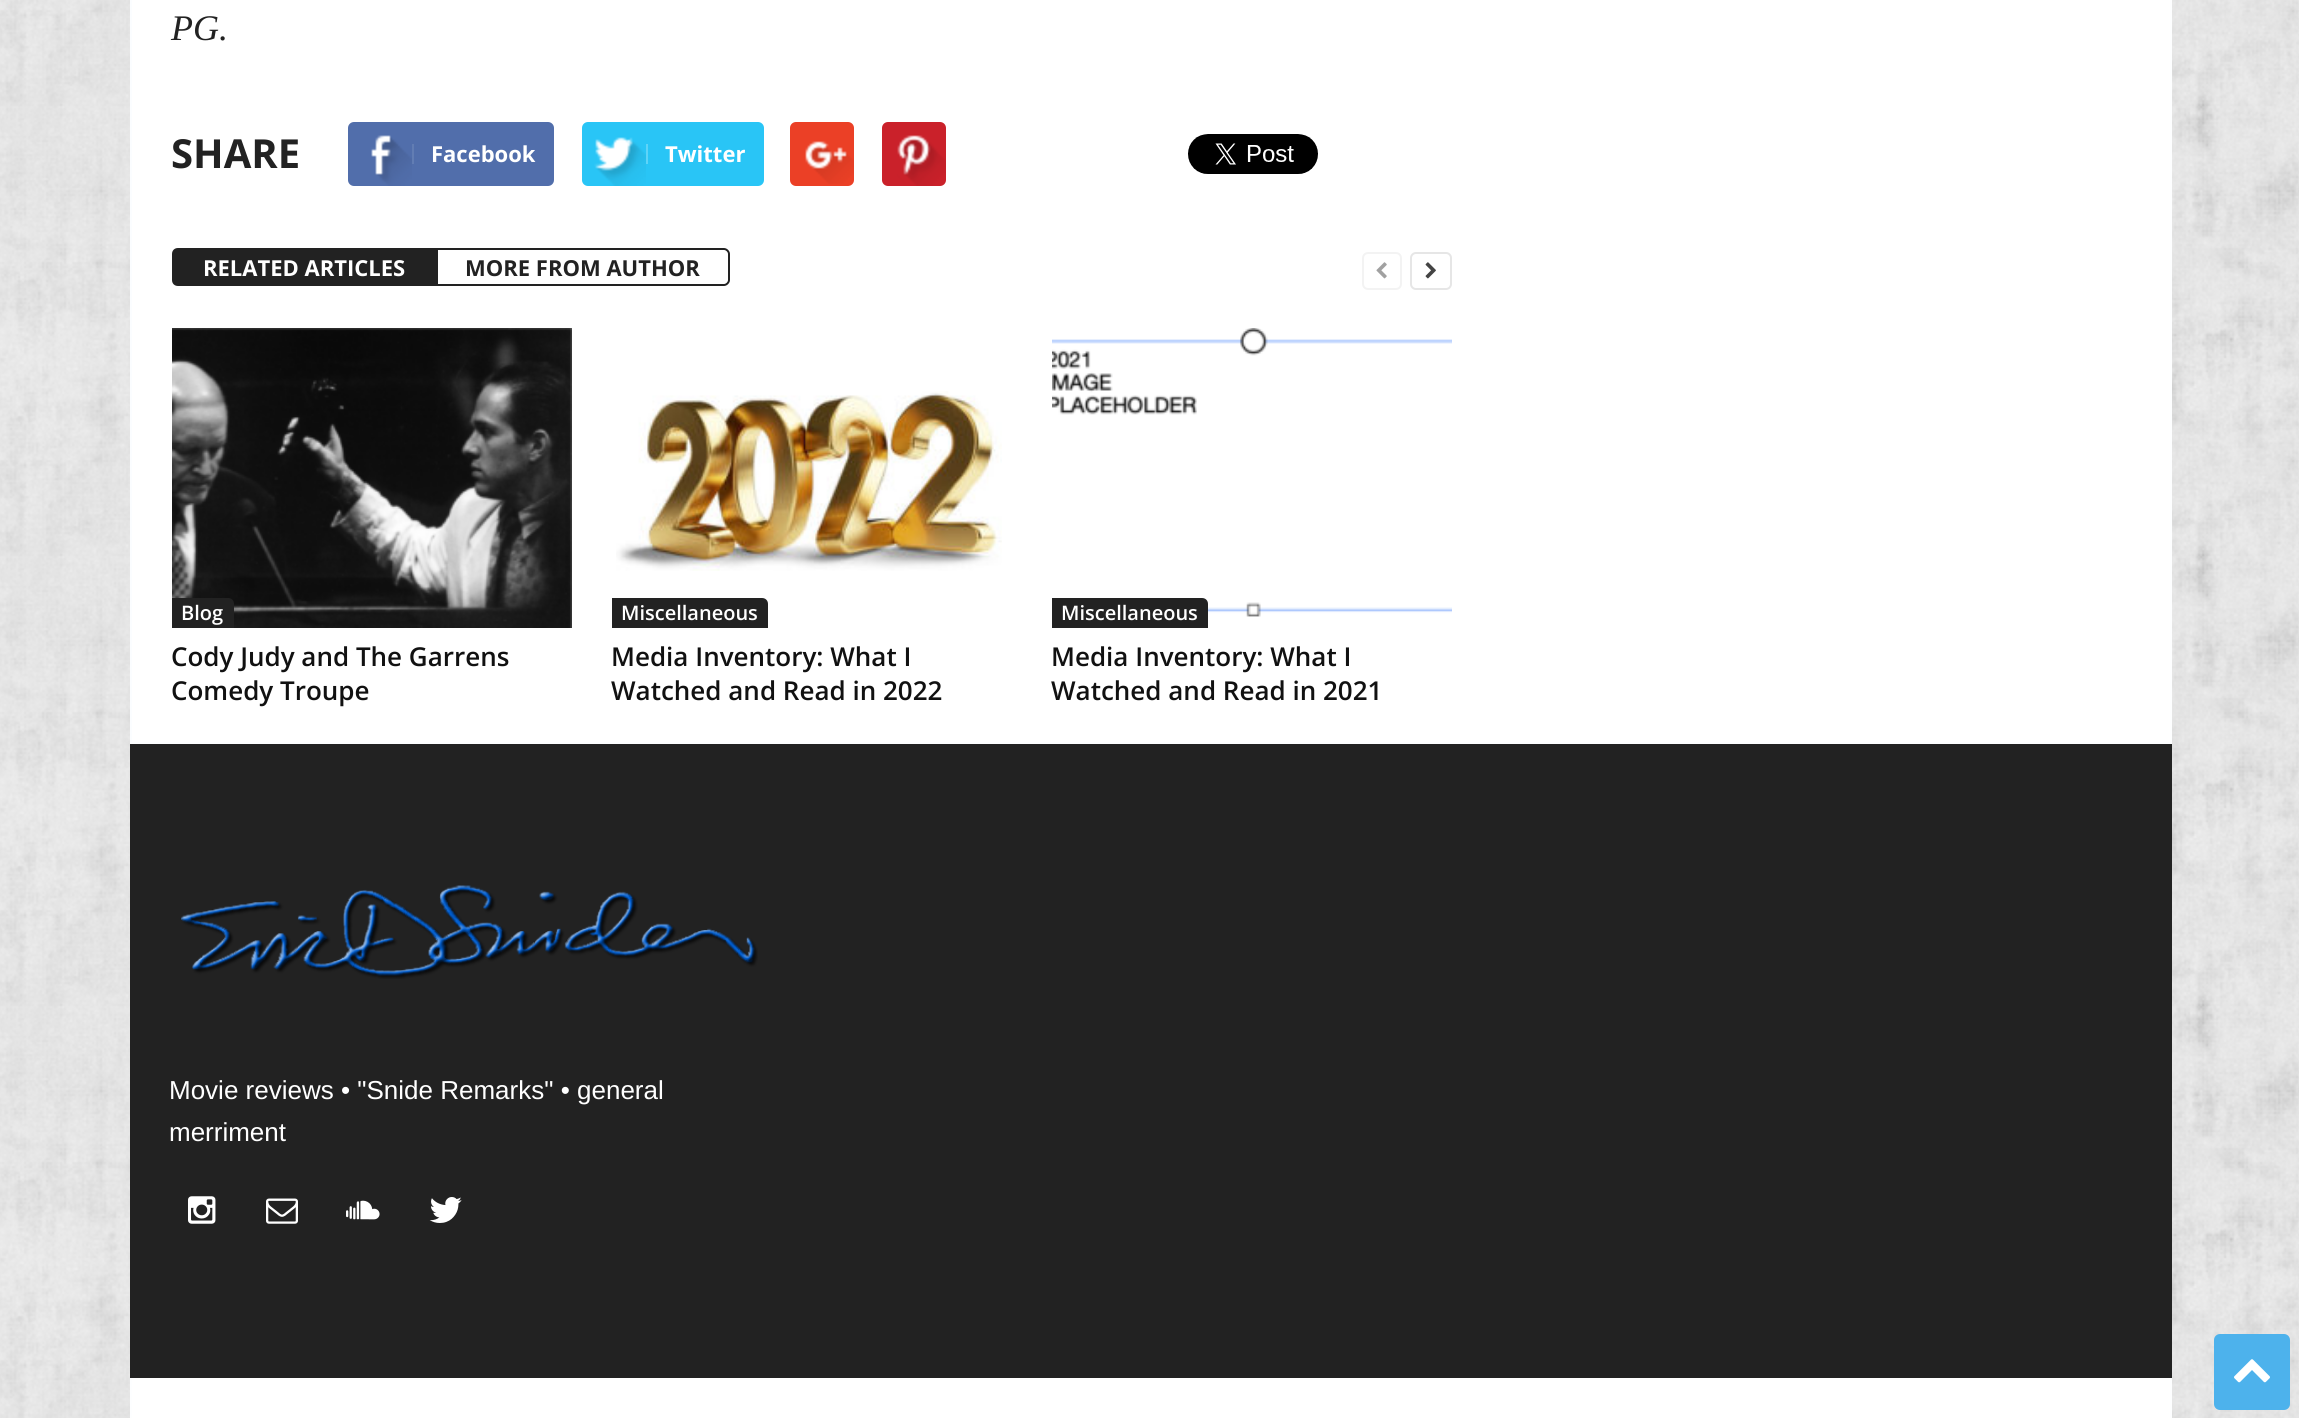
import math
import cairo



def rounded_rect(context, x, y, w, h, r):
    context.new_sub_path()
    for i, (u, v) in enumerate([(x + w - r, y + h - r), (x + r, y + h - r), (x + r, y + r), (x + w - r, y + r)]):
        context.arc(u, v, r, i * math.pi / 2, (i + 1) * math.pi / 2)
    context.close_path()


def draw_image(context, path, x, y, w, h):
    context.save()
    context.set_source_surface(cairo.ImageSurface.create_from_png(path), x, y)
    context.rectangle(x, y, w, h)
    context.fill()
    context.restore()


def draw(context):
    context.set_source_rgb(1, 1, 1)
    context.paint()
    draw_image(context, "images/1.png", 0, 0, 2299, 1418)
    context.set_source_rgb(1, 1, 1)
    context.rectangle(132, 0, 2038, 742)
    context.fill()
    context.set_source_rgb(253 / 255, 254 / 255, 1)
    context.rectangle(130, 742, 2042, 2)
    context.fill()
    context.set_source_rgb(251 / 255, 253 / 255, 1)
    context.rectangle(130, 0, 2, 742)
    context.fill()
    context.set_source_rgb(81 / 255, 110 / 255, 171 / 255)
    rounded_rect(context, 348, 122, 206, 64, 6)
    context.fill()
    draw_image(context, "images/2.png", 371, 135, 41, 51)
    context.set_source_rgb(98 / 255, 125 / 255, 179 / 255)
    context.rectangle(412, 144, 2, 20)
    context.fill()
    context.set_source_rgb(41 / 255, 197 / 255, 246 / 255)
    rounded_rect(context, 582, 122, 182, 64, 6)
    context.fill()
    draw_image(context, "images/3.png", 594, 137, 52, 49)
    context.set_source_rgb(95 / 255, 212 / 255, 248 / 255)
    context.rectangle(646, 144, 2, 20)
    context.fill()
    context.set_source_rgb(235 / 255, 64 / 255, 38 / 255)
    rounded_rect(context, 790, 122, 64, 64, 6)
    context.fill()
    draw_image(context, "images/4.png", 805, 141, 49, 43)
    context.set_source_rgb(202 / 255, 33 / 255, 42 / 255)
    rounded_rect(context, 882, 122, 64, 64, 6)
    context.fill()
    draw_image(context, "images/5.png", 897, 135, 49, 51)
    draw_image(context, "images/6.png", 1188, 134, 130, 40)
    context.set_source_rgb(34 / 255, 34 / 255, 34 / 255)
    context.new_path()
    context.move_to(178, 249)
    context.line_to(437, 249)
    context.line_to(437, 285)
    context.line_to(178, 285)
    context.curve_to(175, 285, 173, 283, 173, 280)
    context.line_to(173, 254)
    context.curve_to(173, 251, 175, 249, 178, 249)
    context.close_path()
    context.fill_preserve()
    context.stroke()
    context.set_fill_rule(cairo.FillRule.EVEN_ODD)
    context.new_path()
    context.move_to(438, 248)
    context.line_to(724, 248)
    context.curve_to(727, 248, 730, 251, 730, 254)
    context.line_to(730, 280)
    context.curve_to(730, 283, 727, 286, 724, 286)
    context.line_to(438, 286)
    context.close_path()
    context.move_to(438, 250)
    context.line_to(724, 250)
    context.curve_to(726, 250, 728, 252, 728, 254)
    context.line_to(728, 280)
    context.curve_to(728, 282, 726, 284, 724, 284)
    context.line_to(438, 284)
    context.close_path()
    context.fill()
    rounded_rect(context, 1363, 253, 38, 36, 5)
    context.set_source_rgb(243 / 255, 243 / 255, 243 / 255)
    context.stroke()
    draw_image(context, "images/7.png", 1376, 262, 11, 17)
    rounded_rect(context, 1411, 253, 40, 36, 5)
    context.set_source_rgb(230 / 255, 230 / 255, 230 / 255)
    context.stroke()
    draw_image(context, "images/8.png", 1425, 262, 11, 17)
    draw_image(context, "images/9.png", 172, 328, 400, 300)
    context.set_source_rgb(34 / 255, 34 / 255, 34 / 255)
    context.new_path()
    context.move_to(172, 598)
    context.line_to(228, 598)
    context.curve_to(231.5, 598, 234, 600.5, 234, 604)
    context.line_to(234, 628)
    context.line_to(172, 628)
    context.close_path()
    context.fill()
    draw_image(context, "images/10.png", 616, 391, 386, 180)
    context.new_path()
    context.move_to(612, 598)
    context.line_to(762, 598)
    context.curve_to(765.5, 598, 768, 600.5, 768, 604)
    context.line_to(768, 628)
    context.line_to(612, 628)
    context.close_path()
    context.fill()
    draw_image(context, "images/11.png", 1052, 328, 400, 289)
    context.new_path()
    context.move_to(1052, 598)
    context.line_to(1202, 598)
    context.curve_to(1205.5, 598, 1208, 600.5, 1208, 604)
    context.line_to(1208, 628)
    context.line_to(1052, 628)
    context.close_path()
    context.fill()
    context.set_source_rgb(253 / 255, 254 / 255, 1)
    context.rectangle(2170, 0, 2, 742)
    context.fill()
    context.set_source_rgb(34 / 255, 34 / 255, 34 / 255)
    context.rectangle(130, 744, 2042, 634)
    context.fill()
    draw_image(context, "images/12.png", 181, 885, 577, 94)
    draw_image(context, "images/13.png", 188, 1196, 28, 28)
    draw_image(context, "images/14.png", 266, 1198, 32, 26)
    draw_image(context, "images/15.png", 346, 1200, 34, 20)
    draw_image(context, "images/16.png", 429, 1197, 33, 26)
    context.set_source_rgb(1, 1, 1)
    context.rectangle(132, 1378, 2038, 40)
    context.fill()
    context.set_source_rgb(253 / 255, 254 / 255, 1)
    context.rectangle(130, 1378, 2, 40)
    context.fill()
    context.rectangle(2170, 1378, 2, 40)
    context.fill()
    context.set_source_rgb(77 / 255, 178 / 255, 236 / 255)
    rounded_rect(context, 2214, 1334, 76, 76, 6)
    context.fill()
    draw_image(context, "images/17.png", 2234, 1359, 36, 24)
    context.select_font_face("Liberation Serif", cairo.FontSlant.ITALIC)
    context.set_font_size(36)
    context.set_source_rgb(34 / 255, 34 / 255, 34 / 255)
    context.move_to(171, 40)
    context.show_text("PG.")
    context.select_font_face("Open Sans", cairo.FontSlant.NORMAL, cairo.FontWeight.BOLD)
    context.set_font_size(40)
    context.move_to(171, 168)
    context.show_text("SHARE")
    context.set_font_size(22)
    context.set_source_rgb(1, 1, 1)
    context.move_to(431, 162)
    context.show_text("Facebook")
    context.move_to(665, 162)
    context.show_text("Twitter")
    context.move_to(203, 276)
    context.show_text("RELATED ARTICLES")
    context.set_source_rgb(34 / 255, 34 / 255, 34 / 255)
    context.move_to(465, 276)
    context.show_text("MORE FROM AUTHOR")
    context.select_font_face("Open Sans SemiBold")
    context.set_font_size(20)
    context.set_source_rgb(1, 1, 1)
    context.move_to(181, 620)
    context.show_text("Blog")
    context.set_font_size(26)
    context.set_source_rgb(17 / 255, 17 / 255, 17 / 255)
    context.move_to(171, 666)
    context.show_text("Cody Judy and The Garrens")
    context.move_to(171, 700)
    context.show_text("Comedy Troupe")
    context.set_font_size(20)
    context.set_source_rgb(1, 1, 1)
    context.move_to(621, 620)
    context.show_text("Miscellaneous")
    context.set_font_size(26)
    context.set_source_rgb(17 / 255, 17 / 255, 17 / 255)
    context.move_to(611, 666)
    context.show_text("Media Inventory: What I")
    context.move_to(611, 700)
    context.show_text("Watched and Read in 2022")
    context.set_font_size(20)
    context.set_source_rgb(1, 1, 1)
    context.move_to(1061, 620)
    context.show_text("Miscellaneous")
    context.set_font_size(26)
    context.set_source_rgb(17 / 255, 17 / 255, 17 / 255)
    context.move_to(1051, 666)
    context.show_text("Media Inventory: What I")
    context.move_to(1051, 700)
    context.show_text("Watched and Read in 2021")
    context.select_font_face("Liberation Sans")
    context.set_source_rgb(1, 1, 1)
    context.move_to(169, 1099)
    context.show_text("Movie reviews • \"Snide Remarks\" • general")
    context.move_to(169, 1141)
    context.show_text("merriment")


surface = cairo.ImageSurface(cairo.Format.RGB24, 2299, 1418)
context = cairo.Context(surface)
options = cairo.FontOptions()
options.set_hint_metrics(cairo.HintMetrics.OFF)
options.set_hint_style(cairo.HintStyle.NONE)
context.set_font_options(options)
context.set_miter_limit(4)
draw(context)
surface.write_to_png("out.png")
